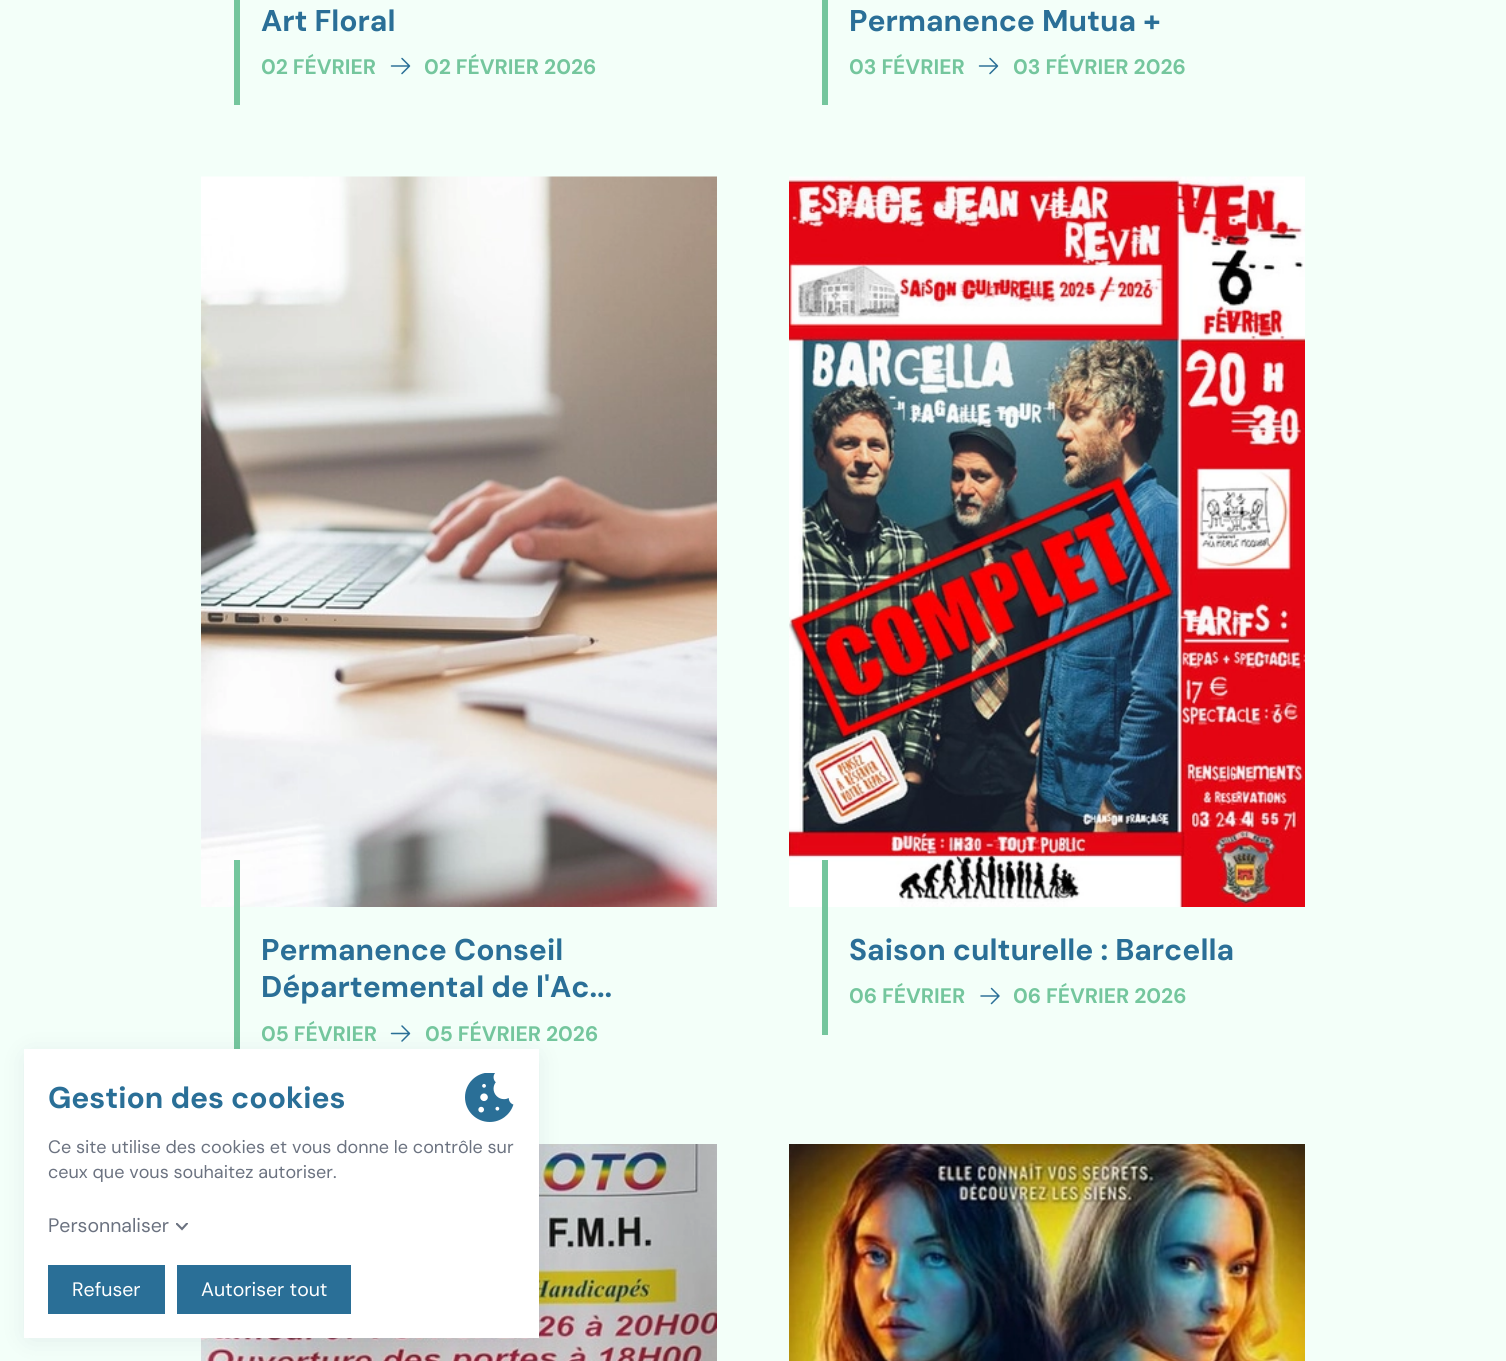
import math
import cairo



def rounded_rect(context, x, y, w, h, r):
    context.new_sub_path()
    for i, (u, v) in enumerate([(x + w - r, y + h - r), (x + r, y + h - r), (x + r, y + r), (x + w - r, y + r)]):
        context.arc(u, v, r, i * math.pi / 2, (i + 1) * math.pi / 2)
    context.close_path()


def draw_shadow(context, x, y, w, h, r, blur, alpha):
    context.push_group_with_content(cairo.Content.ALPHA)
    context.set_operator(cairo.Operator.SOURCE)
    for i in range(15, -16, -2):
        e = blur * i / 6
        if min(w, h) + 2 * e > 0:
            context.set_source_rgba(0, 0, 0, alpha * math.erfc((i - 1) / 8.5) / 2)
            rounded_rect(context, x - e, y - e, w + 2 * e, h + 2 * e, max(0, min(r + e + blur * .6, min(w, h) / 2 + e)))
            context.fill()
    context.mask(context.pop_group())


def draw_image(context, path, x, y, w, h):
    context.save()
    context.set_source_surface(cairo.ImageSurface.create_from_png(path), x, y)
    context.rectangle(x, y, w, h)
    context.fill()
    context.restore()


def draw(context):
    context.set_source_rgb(243 / 255, 1, 249 / 255)
    context.paint()
    context.set_source_rgb(116 / 255, 198 / 255, 157 / 255)
    context.rectangle(234, 0, 6, 105)
    context.fill()
    draw_image(context, "images/1.png", 390, 57, 21, 18)
    context.rectangle(822, 0, 6, 105)
    context.fill()
    draw_image(context, "images/1.png", 978, 57, 21, 18)
    draw_image(context, "images/2.png", 201, 176, 516, 731)
    context.rectangle(234, 860, 6, 189)
    context.fill()
    draw_image(context, "images/3.png", 390, 1025, 21, 17)
    draw_image(context, "images/4.png", 789, 176, 516, 731)
    context.rectangle(822, 860, 6, 175)
    context.fill()
    draw_image(context, "images/5.png", 980, 987, 20, 18)
    draw_image(context, "images/6.png", 201, 1144, 516, 217)
    draw_image(context, "images/7.png", 789, 1144, 516, 217)
    context.set_source_rgb(1 / 255, 1 / 255, 63 / 255)
    draw_shadow(context, 30, 1058, 503, 277, 0, 14, 0.1)
    context.set_source_rgb(1, 1, 1)
    context.rectangle(24, 1049, 515, 289)
    context.fill()
    draw_image(context, "images/8.png", 465, 1073, 49, 49)
    context.save()
    context.rectangle(176, 1223, 13, 9)
    context.clip()
    context.new_path()
    context.move_to(176.5, 1223.5)
    context.line_to(182, 1229)
    context.line_to(187, 1223.5)
    context.set_source_rgb(107 / 255, 114 / 255, 128 / 255)
    context.set_line_width(2.1)
    context.set_line_cap(cairo.LineCap.ROUND)
    context.stroke()
    context.restore()
    context.set_source_rgb(42 / 255, 111 / 255, 151 / 255)
    context.rectangle(48, 1265, 117, 49)
    context.fill()
    context.rectangle(177, 1265, 174, 49)
    context.fill()
    context.select_font_face("DM Sans", cairo.FontSlant.NORMAL, cairo.FontWeight.BOLD)
    context.set_font_size(30)
    context.move_to(261, 31)
    context.show_text("Art Floral")
    context.set_font_size(21)
    context.set_source_rgb(116 / 255, 198 / 255, 157 / 255)
    context.move_to(261, 74)
    context.show_text("02 FÉVRIER")
    context.move_to(424, 74)
    context.show_text("02 FÉVRIER 2026")
    context.set_font_size(30)
    context.set_source_rgb(42 / 255, 111 / 255, 151 / 255)
    context.move_to(849, 31)
    context.show_text("Permanence Mutua +")
    context.set_font_size(21)
    context.set_source_rgb(116 / 255, 198 / 255, 157 / 255)
    context.move_to(849, 74)
    context.show_text("03 FÉVRIER")
    context.move_to(1013, 74)
    context.show_text("03 FÉVRIER 2026")
    context.set_font_size(30)
    context.set_source_rgb(42 / 255, 111 / 255, 151 / 255)
    context.move_to(261, 960)
    context.show_text("Permanence Conseil")
    context.move_to(261, 997)
    context.show_text("Départemental de l'Ac...")
    context.set_font_size(21)
    context.set_source_rgb(116 / 255, 198 / 255, 157 / 255)
    context.move_to(261, 1041)
    context.show_text("05 FÉVRIER")
    context.move_to(425, 1041)
    context.show_text("05 FÉVRIER 2026")
    context.set_font_size(30)
    context.set_source_rgb(42 / 255, 111 / 255, 151 / 255)
    context.move_to(849, 960)
    context.show_text("Saison culturelle : Barcella")
    context.set_font_size(21)
    context.set_source_rgb(116 / 255, 198 / 255, 157 / 255)
    context.move_to(849, 1003)
    context.show_text("06 FÉVRIER")
    context.move_to(1013, 1003)
    context.show_text("06 FÉVRIER 2026")
    context.set_font_size(30)
    context.set_source_rgb(42 / 255, 111 / 255, 151 / 255)
    context.move_to(48, 1108)
    context.show_text("Gestion des cookies")
    context.select_font_face("DM Sans")
    context.set_font_size(18)
    context.set_source_rgb(107 / 255, 114 / 255, 128 / 255)
    context.move_to(48, 1153)
    context.show_text("Ce site utilise des cookies et vous donne le contrôle sur")
    context.move_to(48, 1178)
    context.show_text("ceux que vous souhaitez autoriser.")
    context.set_font_size(19.5)
    context.move_to(48, 1232)
    context.show_text("Personnaliser")
    context.set_source_rgb(1, 1, 1)
    context.move_to(72, 1296)
    context.show_text("Refuser")
    context.move_to(201, 1296)
    context.show_text("Autoriser tout")


surface = cairo.ImageSurface(cairo.Format.RGB24, 1506, 1361)
context = cairo.Context(surface)
options = cairo.FontOptions()
options.set_hint_metrics(cairo.HintMetrics.OFF)
options.set_hint_style(cairo.HintStyle.NONE)
context.set_font_options(options)
context.set_miter_limit(4)
draw(context)
surface.write_to_png("out.png")
